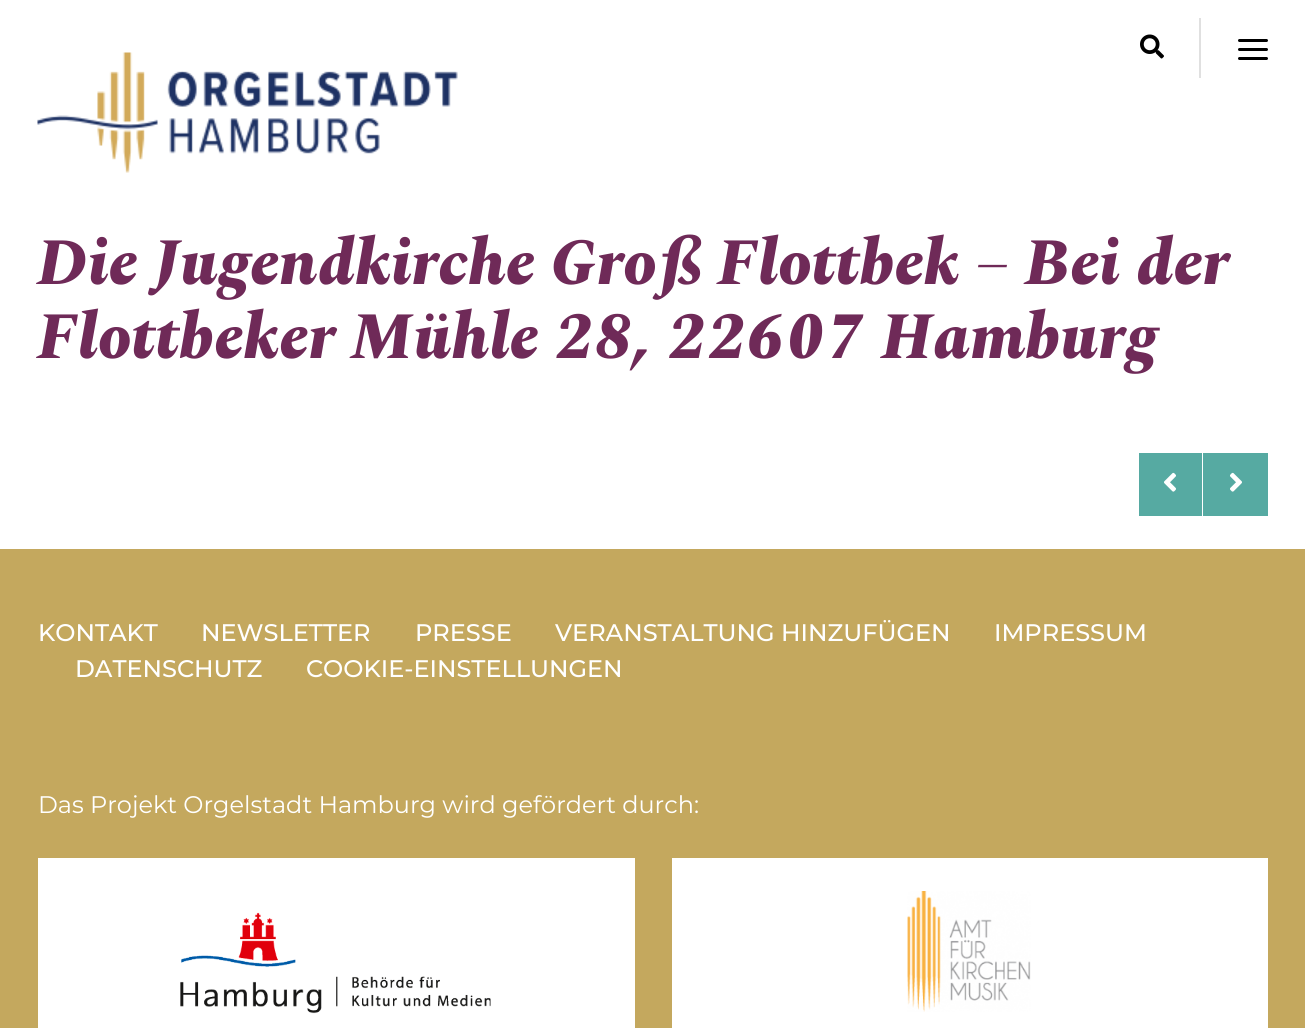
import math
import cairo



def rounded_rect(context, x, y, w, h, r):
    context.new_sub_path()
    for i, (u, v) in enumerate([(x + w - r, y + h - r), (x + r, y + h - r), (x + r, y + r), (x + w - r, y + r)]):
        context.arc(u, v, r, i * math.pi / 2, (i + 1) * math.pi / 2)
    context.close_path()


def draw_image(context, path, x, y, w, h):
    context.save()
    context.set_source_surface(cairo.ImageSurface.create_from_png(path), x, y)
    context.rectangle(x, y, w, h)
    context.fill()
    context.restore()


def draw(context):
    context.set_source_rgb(1, 1, 1)
    context.paint()
    draw_image(context, "images/1.png", 1140, 34, 24, 25)
    context.set_source_rgb(224 / 255, 224 / 255, 224 / 255)
    context.rectangle(1199, 18, 2, 60)
    context.fill()
    context.set_source_rgb(0, 0, 0)
    rounded_rect(context, 1238, 48, 30, 3, 1.5)
    context.fill()
    rounded_rect(context, 1238, 39, 30, 3, 1.5)
    context.fill()
    rounded_rect(context, 1238, 57, 30, 3, 1.5)
    context.fill()
    draw_image(context, "images/2.png", 37, 52, 421, 121)
    context.set_source_rgb(86 / 255, 170 / 255, 162 / 255)
    context.rectangle(1139, 453, 63, 63)
    context.fill()
    draw_image(context, "images/3.png", 1164, 472, 12, 20)
    context.rectangle(1203, 453, 65, 63)
    context.fill()
    draw_image(context, "images/4.png", 1230, 472, 12, 20)
    context.set_source_rgb(196 / 255, 168 / 255, 94 / 255)
    context.rectangle(0, 549, 1305, 479)
    context.fill()
    context.set_source_rgb(1, 1, 1)
    context.rectangle(38, 858, 597, 170)
    context.fill()
    draw_image(context, "images/5.png", 180, 912, 311, 102)
    context.rectangle(672, 858, 596, 170)
    context.fill()
    draw_image(context, "images/6.png", 907, 891, 124, 121)
    context.select_font_face("Spectral ExtraBold", cairo.FontSlant.ITALIC)
    context.set_font_size(66)
    context.set_source_rgb(111 / 255, 42 / 255, 88 / 255)
    context.move_to(38, 284)
    context.show_text("Die Jugendkirche Groß Flottbek – Bei der")
    context.move_to(38, 358)
    context.show_text("Flottbeker Mühle 28, 22607 Hamburg")
    context.select_font_face("Montserrat Medium")
    context.set_font_size(24)
    context.set_source_rgb(1, 1, 1)
    context.move_to(38, 641)
    context.show_text("KONTAKT")
    context.move_to(201, 641)
    context.show_text("NEWSLETTER")
    context.move_to(415, 641)
    context.show_text("PRESSE")
    context.move_to(555, 641)
    context.show_text("VERANSTALTUNG HINZUFÜGEN")
    context.move_to(994, 641)
    context.show_text("IMPRESSUM")
    context.move_to(75, 677)
    context.show_text("DATENSCHUTZ")
    context.move_to(306, 677)
    context.show_text("COOKIE-EINSTELLUNGEN")
    context.select_font_face("Montserrat")
    context.move_to(38, 813)
    context.show_text("Das Projekt Orgelstadt Hamburg wird gefördert durch:")


surface = cairo.ImageSurface(cairo.Format.RGB24, 1305, 1028)
context = cairo.Context(surface)
options = cairo.FontOptions()
options.set_hint_metrics(cairo.HintMetrics.OFF)
options.set_hint_style(cairo.HintStyle.NONE)
context.set_font_options(options)
context.set_miter_limit(4)
draw(context)
surface.write_to_png("out.png")
